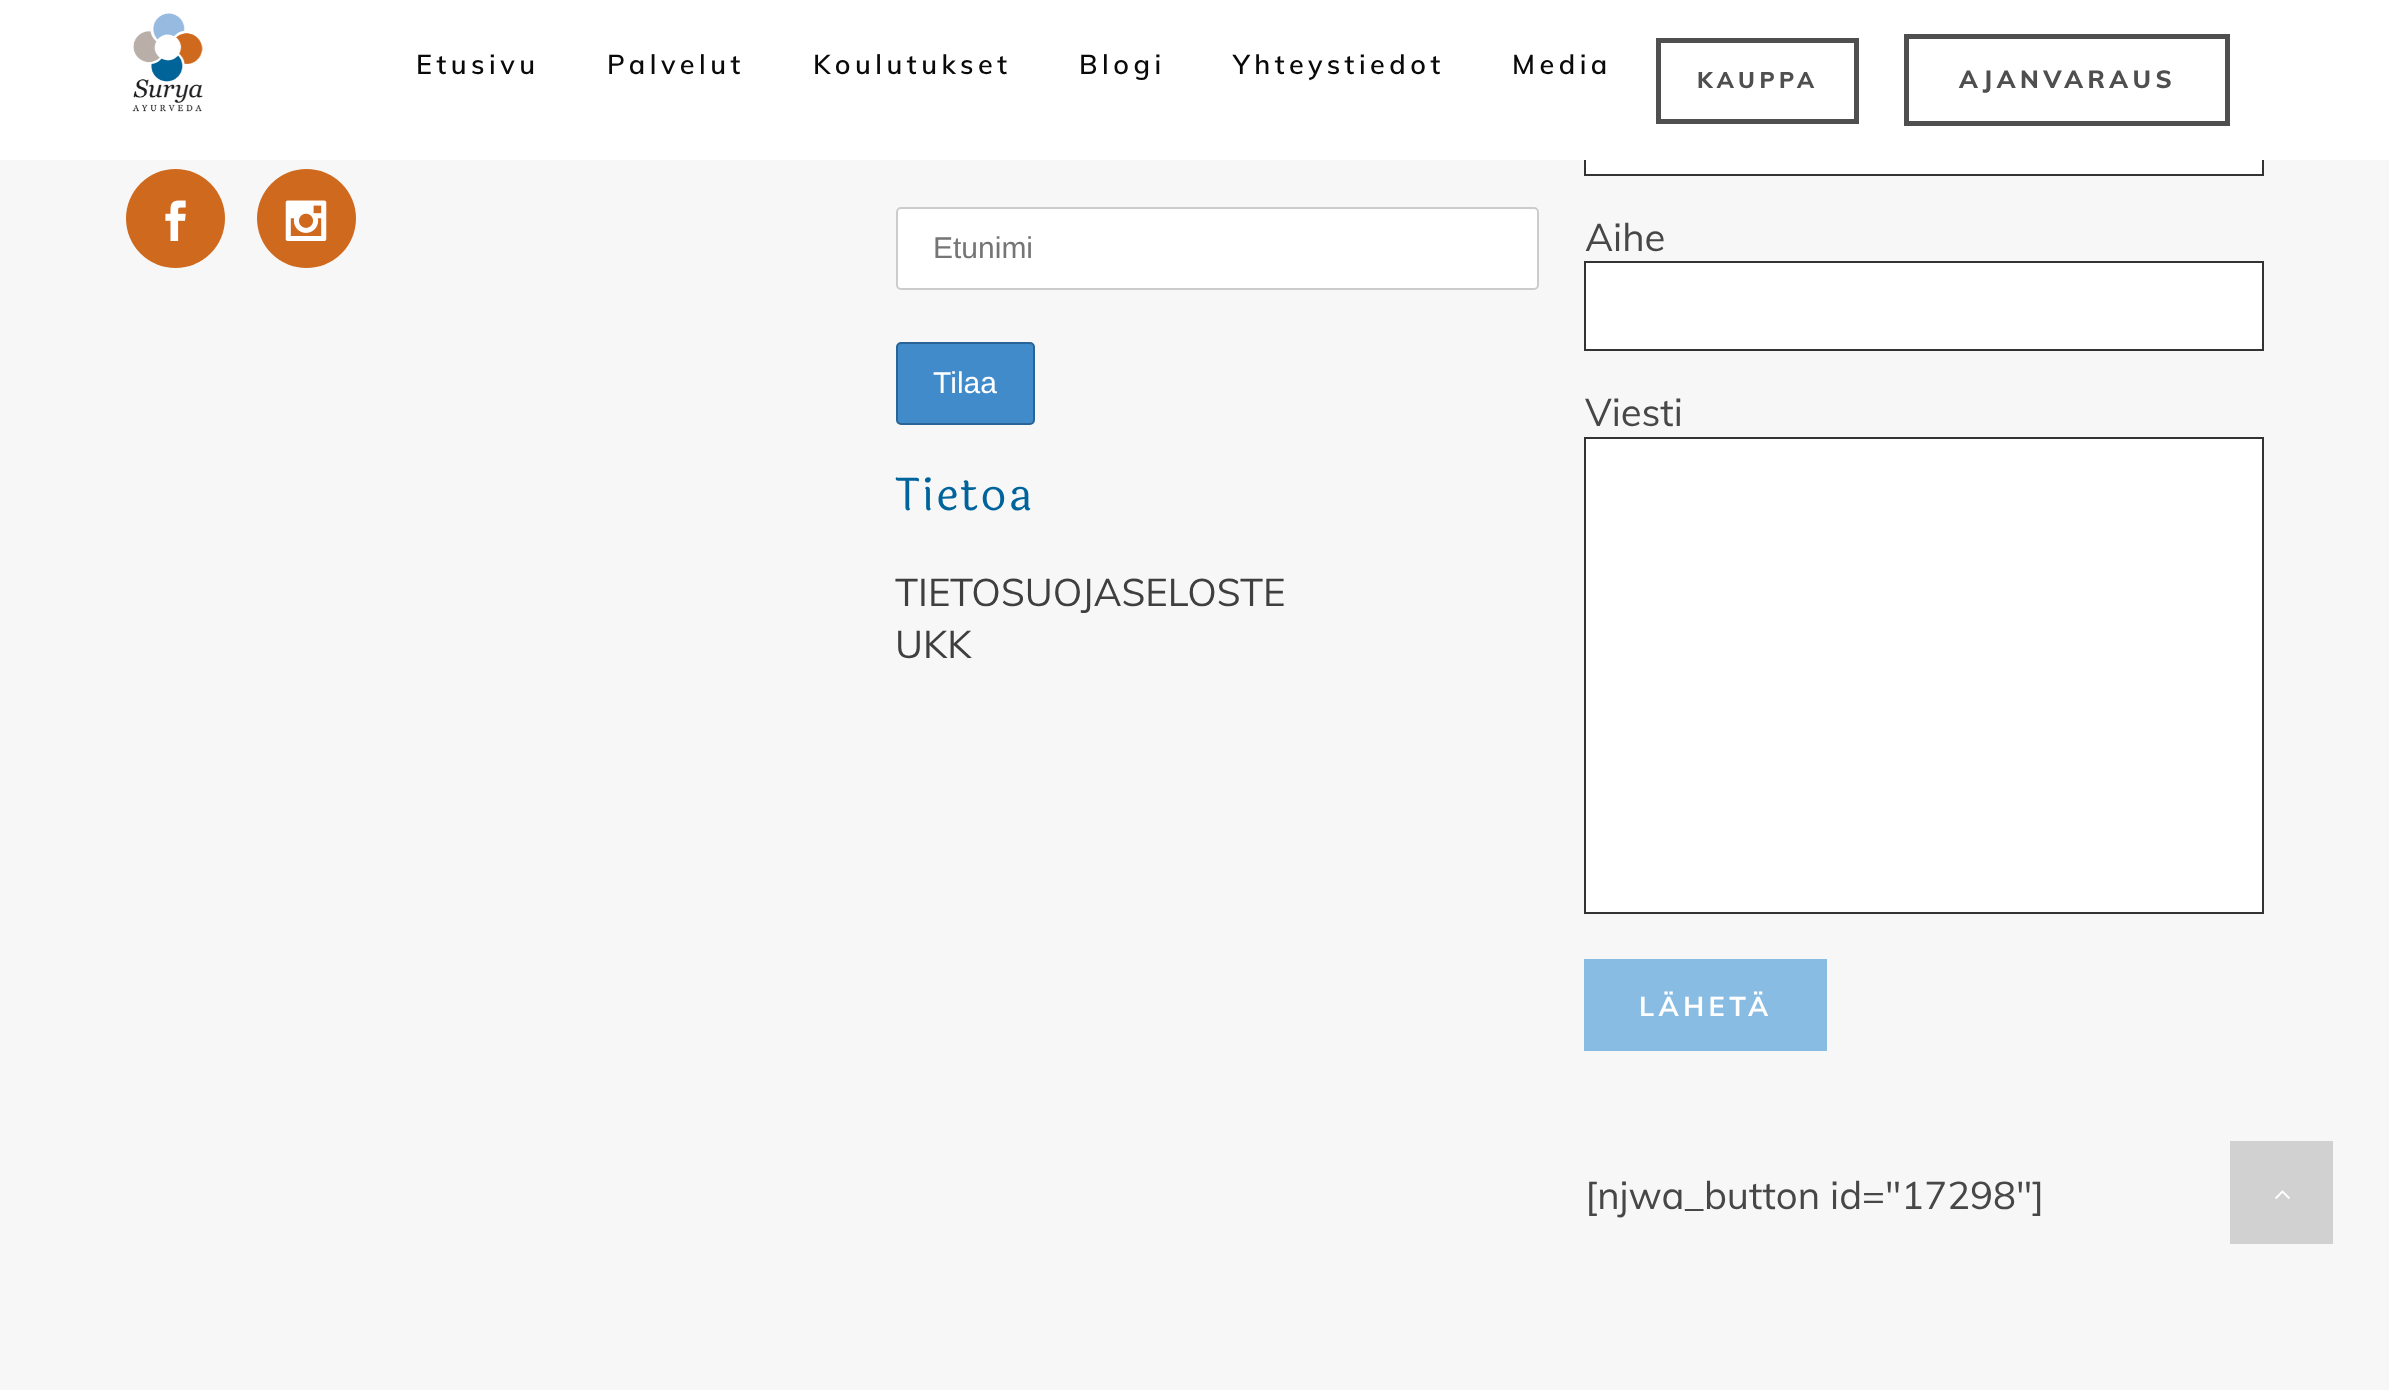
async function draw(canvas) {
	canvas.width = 2389;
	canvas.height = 1390;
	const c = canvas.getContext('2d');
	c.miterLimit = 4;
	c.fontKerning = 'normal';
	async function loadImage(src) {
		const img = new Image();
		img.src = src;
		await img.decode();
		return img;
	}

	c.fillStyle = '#f7f7f7';
	c.fillRect(0, 0, 2389, 1390);
	c.fillStyle = '#fff';
	c.fillRect(1586, 160, 676, 14);
	c.strokeStyle = '#333';
	c.lineWidth = 2;
	c.strokeRect(1585, 87, 678, 88);
	c.fillRect(0, 0, 2389, 160);
	c.drawImage(await loadImage('img1.png'), 132, 13, 71, 99);
	c.letterSpacing = '4.5px';
	c.font = '600 27px Muli';
	c.fillStyle = '#0a0a0a';
	for (const [text, x, y] of [
		['Etusivu', 416, 74],
		['Palvelut', 607, 74],
		['Koulutukset', 813, 74],
		['Blogi', 1079, 74],
		['Yhteystiedot', 1233, 74],
		['Media', 1512, 74],
	]) {
		c.fillText(text, x, y);
	}
	c.strokeStyle = '#4f4f4f';
	c.lineWidth = 5;
	c.strokeRect(1658.5, 40.5, 198, 81);
	c.font = '800 22.5px Muli';
	c.fillStyle = '#4f4f4f';
	c.fillText('KAUPPA', 1697, 88);
	c.strokeRect(1906.5, 36.5, 321, 87);
	c.font = '800 24.75px Muli';
	c.fillText('AJANVARAUS', 1959, 88);
	c.fillStyle = '#d1d1d1';
	c.fillRect(2230, 1141, 103, 103);
	c.drawImage(await loadImage('img2.png'), 2275, 1190, 15, 9);
	c.fillStyle = '#cf691e';
	c.beginPath();
	c.arc(175.5, 218.5, 49.5, 0, 2 * Math.PI);
	c.fill();
	c.drawImage(await loadImage('img3.png'), 165, 200, 21, 41);
	c.beginPath();
	c.arc(306.5, 218.5, 49.5, 0, 2 * Math.PI);
	c.fill();
	c.drawImage(await loadImage('img4.png'), 285, 200, 42, 41);
	c.fillStyle = '#fff';
	c.beginPath();
	c.roundRect(897, 208, 641, 81, 4);
	c.fill();
	c.strokeStyle = '#ccc';
	c.lineWidth = 2;
	c.stroke();
	c.letterSpacing = '0px';
	c.font = '30px Liberation Sans';
	c.fillStyle = '#757575';
	c.fillText('Etunimi', 933, 258);
	c.fillStyle = '#428bca';
	c.beginPath();
	c.roundRect(897, 343, 137, 81, 4);
	c.fill();
	c.strokeStyle = '#2a6496';
	c.stroke();
	c.fillStyle = '#fff';
	c.fillText('Tilaa', 933, 393);
	c.letterSpacing = '2.25px';
	c.font = '45px Laila';
	c.fillStyle = '#00649c';
	c.fillText('Tietoa', 895, 510);
	c.letterSpacing = '0px';
	c.font = '38.25px Muli';
	c.fillStyle = '#3f3f3f';
	c.fillText('TIETOSUOJASELOSTE', 895, 606);
	c.fillText('UKK', 895, 658);
	c.fillStyle = '#474747';
	c.fillText('Aihe', 1585, 251);
	c.fillStyle = '#fff';
	c.beginPath();
	c.rect(1585, 262, 678, 88);
	c.fill();
	c.strokeStyle = '#333';
	c.stroke();
	c.fillStyle = '#474747';
	c.fillText('Viesti', 1585, 426);
	c.fillStyle = '#fff';
	c.beginPath();
	c.rect(1585, 438, 678, 475);
	c.fill();
	c.stroke();
	c.fillStyle = '#88bce2';
	c.fillRect(1584, 959, 243, 92);
	c.letterSpacing = '4.5px';
	c.font = 'bold 27px Muli';
	c.fillStyle = '#fff';
	c.fillText('LÄHETÄ', 1639, 1016);
	c.letterSpacing = '0px';
	c.font = '38.25px Muli';
	c.fillStyle = '#474747';
	c.fillText('[njwa_button id="17298"]', 1585, 1209);
}

draw(document.querySelector('canvas'));
